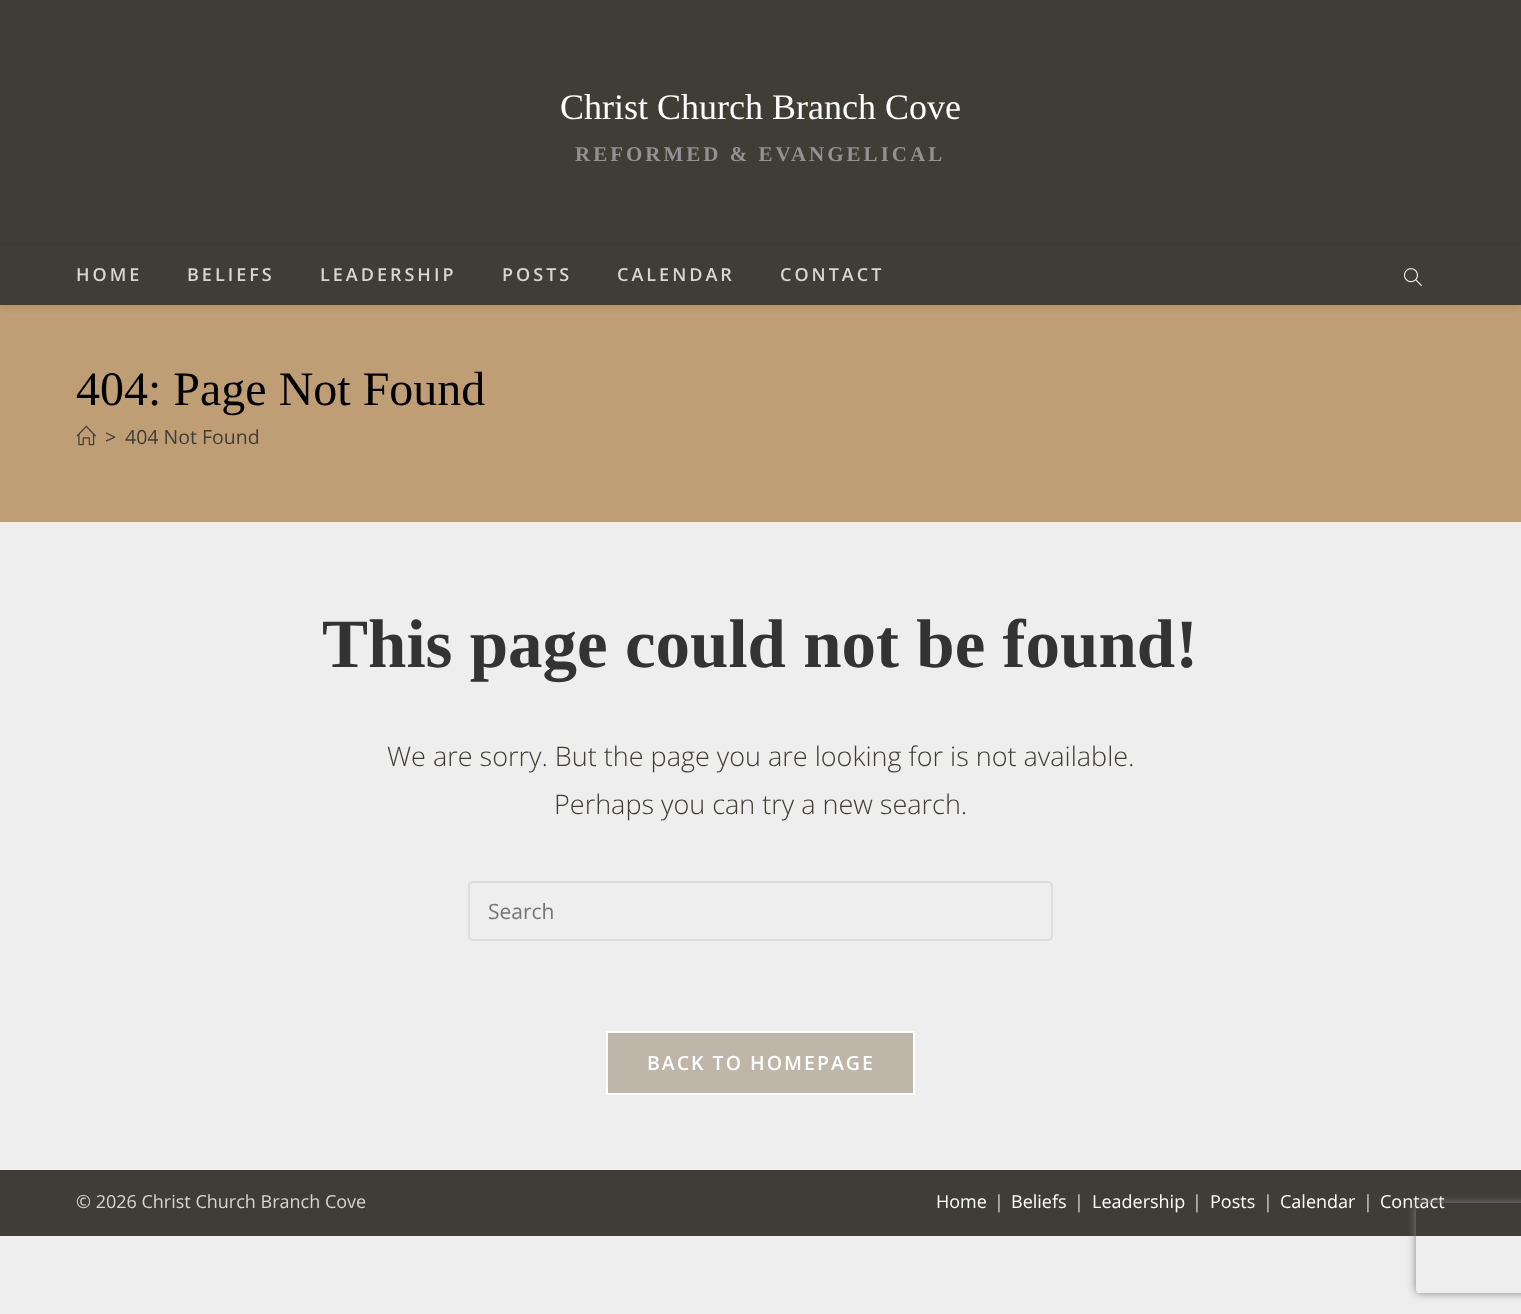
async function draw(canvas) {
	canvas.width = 1521;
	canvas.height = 1314;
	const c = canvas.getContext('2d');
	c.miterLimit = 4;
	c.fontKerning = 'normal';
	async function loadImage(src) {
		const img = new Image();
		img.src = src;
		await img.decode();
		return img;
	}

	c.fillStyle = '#eee';
	c.fillRect(0, 0, 1521, 1314);
	c.fillStyle = '#403c36';
	c.fillRect(0, 0, 1521, 245);
	c.font = '36px Liberation Serif';
	c.fillStyle = '#fff';
	c.fillText('Christ Church Branch Cove', 560, 119);
	c.letterSpacing = '3px';
	c.font = 'bold 21px Liberation Serif';
	c.fillStyle = '#929292';
	c.fillText('REFORMED & EVANGELICAL', 575, 161);
	c.fillStyle = '#bf9e75';
	c.fillRect(0, 305, 1521, 217);
	c.fillStyle = '#0000001a';
	c.filter = 'blur(4px)';
	c.beginPath();
	c.rect(0, 246, 1521, 60);
	c.fill();
	c.filter = 'none';
	c.fillStyle = '#403c36';
	c.fillRect(0, 245, 1521, 60);
	c.font = '600 18px Open Sans';
	c.fillStyle = '#d9d5d2';
	for (const [text, x, y] of [
		['HOME', 76, 281],
		['BELIEFS', 187, 281],
		['LEADERSHIP', 320, 281],
		['POSTS', 502, 281],
		['CALENDAR', 617, 281],
		['CONTACT', 780, 281],
	]) {
		c.fillText(text, x, y);
	}
	c.drawImage(await loadImage('img1.png'), 1404, 268, 18, 19);
	c.letterSpacing = '0px';
	c.font = '48px Liberation Serif';
	c.fillStyle = '#000';
	c.fillText('404: Page Not Found', 76, 405);
	c.drawImage(await loadImage('img2.png'), 77, 425, 19, 21);
	c.font = '19.5px Open Sans';
	c.fillStyle = '#403c36';
	c.fillText('>', 105, 444);
	c.fillText('404 Not Found', 125, 444);
	c.font = 'bold 69px Liberation Serif';
	c.fillStyle = '#333';
	c.fillText('This page could not be found!', 322, 667);
	c.font = '300 27px Open Sans';
	c.fillStyle = '#403c36';
	c.fillText('We are sorry. But the page you are looking for is not available.', 387, 766);
	c.fillText('Perhaps you can try a new search.', 554, 814);
	c.beginPath();
	c.roundRect(469, 882, 583, 58, 4);
	c.strokeStyle = '#ddd';
	c.lineWidth = 2;
	c.stroke();
	c.font = '21px Open Sans';
	c.fillStyle = '#757575';
	c.fillText('Search', 488, 919);
	c.fillStyle = '#bfb5a8';
	c.beginPath();
	c.rect(607, 1032, 307, 62);
	c.fill();
	c.strokeStyle = '#fff';
	c.stroke();
	c.letterSpacing = '2px';
	c.font = '600 19.5px Open Sans';
	c.fillStyle = '#fff';
	c.fillText('BACK TO HOMEPAGE', 647, 1070);
	c.fillStyle = '#403c36';
	c.fillRect(0, 1170, 1521, 66);
	c.letterSpacing = '0px';
	c.font = '18px Open Sans';
	c.fillStyle = '#d9d5d2';
	c.fillText('© 2026 Christ Church Branch Cove', 76, 1208);
	c.fillStyle = '#fff';
	c.fillText('Home', 936, 1208);
	c.fillStyle = '#d9d5d2';
	c.fillText('|', 994, 1208);
	c.fillStyle = '#fff';
	c.fillText('Beliefs', 1011, 1208);
	c.fillStyle = '#d9d5d2';
	c.fillText('|', 1074, 1208);
	c.fillStyle = '#fff';
	c.fillText('Leadership', 1092, 1208);
	c.fillStyle = '#d9d5d2';
	c.fillText('|', 1192, 1208);
	c.fillStyle = '#fff';
	c.fillText('Posts', 1210, 1208);
	c.fillStyle = '#d9d5d2';
	c.fillText('|', 1263, 1208);
	c.fillStyle = '#fff';
	c.fillText('Calendar', 1280, 1208);
	c.fillStyle = '#d9d5d2';
	c.fillText('|', 1363, 1208);
	c.fillStyle = '#fff';
	c.fillText('Contact', 1380, 1208);
	c.save();
	c.beginPath();
	c.moveTo(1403, 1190);
	c.lineTo(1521, 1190);
	c.lineTo(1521, 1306);
	c.lineTo(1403, 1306);
	c.closePath();
	c.moveTo(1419, 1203);
	c.lineTo(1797, 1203);
	c.bezierCurveTo(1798.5, 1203, 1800, 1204.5, 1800, 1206);
	c.lineTo(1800, 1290);
	c.bezierCurveTo(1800, 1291.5, 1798.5, 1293, 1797, 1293);
	c.lineTo(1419, 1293);
	c.bezierCurveTo(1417.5, 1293, 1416, 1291.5, 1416, 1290);
	c.lineTo(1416, 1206);
	c.bezierCurveTo(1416, 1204.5, 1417.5, 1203, 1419, 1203);
	c.closePath();
	c.clip('evenodd');
	c.fillStyle = '#808080';
	c.filter = 'blur(4px)';
	c.beginPath();
	c.roundRect(1416, 1203, 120, 90, 3);
	c.fill();
	c.filter = 'none';
	c.restore();
}

draw(document.querySelector('canvas'));
